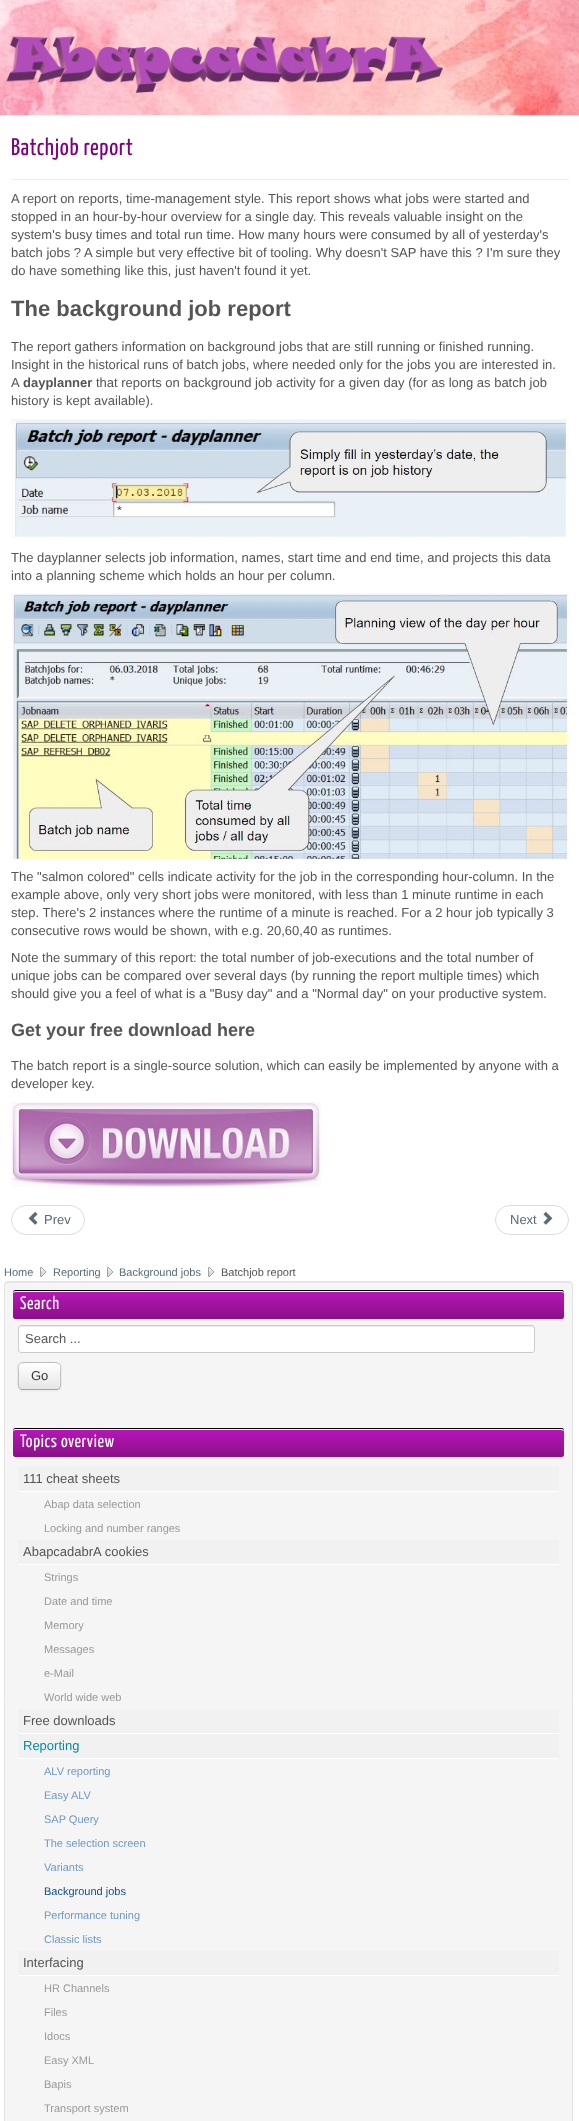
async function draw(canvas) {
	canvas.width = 579;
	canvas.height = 2121;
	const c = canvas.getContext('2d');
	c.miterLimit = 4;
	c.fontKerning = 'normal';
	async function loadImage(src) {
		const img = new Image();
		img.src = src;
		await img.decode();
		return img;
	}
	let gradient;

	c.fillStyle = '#fff';
	c.fillRect(0, 0, 579, 2121);
	c.drawImage(await loadImage('img1.png'), 0, 0, 579, 115);
	c.drawImage(await loadImage('img2.png'), 6, 36, 437, 57);
	c.fillStyle = '#eee';
	c.fillRect(11, 179, 558, 1);
	c.letterSpacing = '0.6px';
	c.font = '200 24px Yanone Kaffeesatz';
	c.fillStyle = '#800080';
	c.fillText('Batchjob report', 11, 155);
	c.letterSpacing = '0px';
	c.font = '13px Liberation Sans';
	c.fillStyle = '#555';
	for (const [text, x, y] of [
		['A report on reports, time-management style. This report shows what jobs were started and', 11, 203],
		['stopped in an hour-by-hour overview for a single day. This reveals valuable insight on the', 11, 221],
		['system\'s busy times and total run time. How many hours were consumed by all of yesterday\'s', 11, 239],
		['batch jobs ? A simple but very effective bit of tooling. Why doesn\'t SAP have this ? I\'m sure they', 11, 257],
		['do have something like this, just haven\'t found it yet.', 11, 275],
	]) {
		c.fillText(text, x, y);
	}
	c.font = 'bold 22px Liberation Sans';
	c.fillText('The background job report', 11, 316);
	c.font = '13px Liberation Sans';
	for (const [text, x, y] of [
		['The report gathers information on background jobs that are still running or finished running.', 11, 351],
		['Insight in the historical runs of batch jobs, where needed only for the jobs you are interested in.', 11, 369],
		['A', 11, 387],
	]) {
		c.fillText(text, x, y);
	}
	c.font = 'bold 13px Liberation Sans';
	c.fillText('dayplanner', 23, 387);
	c.font = '13px Liberation Sans';
	c.fillText('that reports on background job activity for a given day (for as long as batch job', 96, 387);
	c.fillText('history is kept available).', 11, 405);
	c.drawImage(await loadImage('img3.png'), 11, 419, 558, 119);
	c.fillText('The dayplanner selects job information, names, start time and end time, and projects this data', 11, 562);
	c.fillText('into a planning scheme which holds an hour per column.', 11, 580);
	c.drawImage(await loadImage('img4.png'), 11, 594, 558, 265);
	for (const [text, x, y] of [
		['The "salmon colored" cells indicate activity for the job in the corresponding hour-column. In the', 11, 881],
		['example above, only very short jobs were monitored, with less than 1 minute runtime in each', 11, 899],
		['step. There\'s 2 instances where the runtime of a minute is reached. For a 2 hour job typically 3', 11, 917],
		['consecutive rows would be shown, with e.g. 20,60,40 as runtimes.', 11, 935],
		['Note the summary of this report: the total number of job-executions and the total number of', 11, 962],
		['unique jobs can be compared over several days (by running the report multiple times) which', 11, 980],
		['should give you a feel of what is a "Busy day" and a "Normal day" on your productive system.', 11, 998],
	]) {
		c.fillText(text, x, y);
	}
	c.font = 'bold 18px Liberation Sans';
	c.fillText('Get your free download here', 11, 1036);
	c.font = '13px Liberation Sans';
	c.fillText('The batch report is a single-source solution, which can easily be implemented by anyone with a', 11, 1070);
	c.fillText('developer key.', 11, 1088);
	c.drawImage(await loadImage('img5.png'), 11, 1102, 310, 85);
	c.beginPath();
	c.roundRect(11.5, 1205.5, 73, 29, 14.5);
	c.strokeStyle = '#ddd';
	c.stroke();
	c.drawImage(await loadImage('img6.png'), 28, 1211, 10, 14);
	c.fillStyle = '#586b79';
	c.fillText('Prev', 44, 1224);
	c.beginPath();
	c.roundRect(495.5, 1205.5, 73, 29, 14.5);
	c.stroke();
	c.fillText('Next', 510, 1224);
	c.drawImage(await loadImage('img7.png'), 543, 1211, 10, 14);
	c.font = '11px Liberation Sans';
	c.fillText('Home', 4, 1276);
	c.drawImage(await loadImage('img8.png'), 40, 1267, 6, 10);
	c.fillText('Reporting', 53, 1276);
	c.drawImage(await loadImage('img8.png'), 107, 1267, 6, 10);
	c.fillText('Background jobs', 119, 1276);
	c.drawImage(await loadImage('img8.png'), 208, 1267, 6, 10);
	c.fillStyle = '#555';
	c.fillText('Batchjob report', 221, 1276);
	c.fillStyle = '#f5f5f5';
	c.beginPath();
	c.roundRect(4, 1281, 569, 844, 4);
	c.fill();
	c.fillStyle = '#e9e9e9';
	c.beginPath();
	c.moveTo(8, 1283);
	c.lineTo(569, 1283);
	c.bezierCurveTo(571, 1283, 572, 1284, 572, 1286);
	c.lineTo(572, 1285);
	c.bezierCurveTo(572, 1283, 571, 1282, 569, 1282);
	c.lineTo(8, 1282);
	c.bezierCurveTo(6, 1282, 5, 1283, 5, 1285);
	c.lineTo(5, 1286);
	c.bezierCurveTo(5, 1284, 6, 1283, 8, 1283);
	c.closePath();
	c.fill();
	c.beginPath();
	c.roundRect(4.5, 1281.5, 568, 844, 3.5);
	c.strokeStyle = '#e3e3e3';
	c.stroke();
	c.fillStyle = '#800080';
	c.beginPath();
	c.roundRect(13, 1290, 551, 29, 3);
	c.fill();
	c.save();
	c.beginPath();
	c.roundRect(13, 1290, 551, 29, 3);
	c.clip();
	gradient = c.createLinearGradient(289, 1263, 289, 1291);
	gradient.addColorStop(0, '#b716b7');
	gradient.addColorStop(1, '#8a108a');
	c.fillStyle = gradient;
	c.fillRect(13, 1290, 551, 1);
	gradient = c.createLinearGradient(289, 1291, 289, 1319);
	gradient.addColorStop(0, '#b716b7');
	gradient.addColorStop(1, '#8a108a');
	c.fillStyle = gradient;
	c.beginPath();
	c.roundRect(13, 1291, 551, 28, [0, 0, 3, 3]);
	c.fill();
	c.restore();
	c.fillStyle = '#fff';
	c.beginPath();
	c.moveTo(16, 1292);
	c.lineTo(561, 1292);
	c.bezierCurveTo(563, 1292, 564, 1293, 564, 1294);
	c.bezierCurveTo(564, 1292, 563, 1291, 561, 1291);
	c.lineTo(16, 1291);
	c.bezierCurveTo(14, 1291, 13, 1292, 13, 1294);
	c.bezierCurveTo(13, 1293, 14, 1292, 16, 1292);
	c.closePath();
	c.fill();
	c.fillStyle = '#000';
	c.fillRect(15, 1290, 548, 1);
	c.letterSpacing = '0.6px';
	c.font = '200 18px Yanone Kaffeesatz';
	c.fillStyle = '#fff';
	c.fillText('Search', 20, 1309);
	c.beginPath();
	c.roundRect(18, 1325, 517, 28, 3);
	c.fill();
	c.fillStyle = '#ececec';
	c.beginPath();
	c.moveTo(21, 1327);
	c.lineTo(532, 1327);
	c.bezierCurveTo(533, 1327, 534, 1328, 534, 1329);
	c.bezierCurveTo(534, 1328, 534, 1326, 532, 1326);
	c.lineTo(21, 1326);
	c.lineTo(19, 1327);
	c.lineTo(19, 1329);
	c.bezierCurveTo(19, 1328, 20, 1327, 21, 1327);
	c.closePath();
	c.fill();
	c.beginPath();
	c.roundRect(18.5, 1325.5, 516, 27, 2.5);
	c.strokeStyle = '#ccc';
	c.stroke();
	c.letterSpacing = '0px';
	c.font = '13px Liberation Sans';
	c.fillStyle = '#555';
	c.fillText('Search ...', 25, 1343);
	c.fillStyle = '#0000000d';
	c.filter = 'blur(1px)';
	c.beginPath();
	c.roundRect(18, 1363, 43, 28, 4);
	c.fill();
	c.filter = 'none';
	c.fillStyle = '#f5f5f5';
	c.beginPath();
	c.roundRect(18, 1362, 43, 28, 4);
	c.fill();
	c.save();
	c.beginPath();
	c.roundRect(18, 1362, 43, 28, 4);
	c.clip();
	gradient = c.createLinearGradient(40, 1363, 40, 1389);
	gradient.addColorStop(0, '#fff');
	gradient.addColorStop(1, '#e6e6e6');
	c.fillStyle = gradient;
	c.fillRect(18, 1363, 43, 26);
	c.restore();
	c.beginPath();
	c.moveTo(59.5, 1388.5);
	c.bezierCurveTo(59, 1389, 58, 1389.5, 57, 1389.5);
	c.lineTo(22, 1389.5);
	c.bezierCurveTo(21, 1389.5, 20, 1389, 19.5, 1388.5);
	c.strokeStyle = '#a2a2a2';
	c.stroke();
	c.beginPath();
	c.moveTo(19.5, 1388.5);
	c.bezierCurveTo(17.5, 1386, 18.5, 1378.5, 18.5, 1376);
	c.bezierCurveTo(18.5, 1364, 16, 1362.5, 28, 1362.5);
	c.lineTo(51, 1362.5);
	c.bezierCurveTo(63, 1362.5, 60.5, 1364, 60.5, 1376);
	c.bezierCurveTo(60.5, 1378.5, 61.5, 1386, 59.5, 1388.5);
	c.strokeStyle = '#bbb';
	c.stroke();
	c.fillStyle = '#333';
	c.fillText('Go', 31, 1380);
	c.fillStyle = '#800080';
	c.beginPath();
	c.roundRect(13, 1428, 551, 29, 3);
	c.fill();
	c.save();
	c.beginPath();
	c.roundRect(13, 1428, 551, 29, 3);
	c.clip();
	gradient = c.createLinearGradient(289, 1401, 289, 1429);
	gradient.addColorStop(0, '#b716b7');
	gradient.addColorStop(1, '#8a108a');
	c.fillStyle = gradient;
	c.fillRect(13, 1428, 551, 1);
	gradient = c.createLinearGradient(289, 1429, 289, 1457);
	gradient.addColorStop(0, '#b716b7');
	gradient.addColorStop(1, '#8a108a');
	c.fillStyle = gradient;
	c.beginPath();
	c.roundRect(13, 1429, 551, 28, [0, 0, 3, 3]);
	c.fill();
	c.restore();
	c.fillStyle = '#fff';
	c.beginPath();
	c.moveTo(16, 1430);
	c.lineTo(561, 1430);
	c.bezierCurveTo(563, 1430, 564, 1431, 564, 1432);
	c.bezierCurveTo(564, 1430, 563, 1429, 561, 1429);
	c.lineTo(16, 1429);
	c.bezierCurveTo(14, 1429, 13, 1430, 13, 1432);
	c.bezierCurveTo(13, 1431, 14, 1430, 16, 1430);
	c.closePath();
	c.fill();
	c.fillStyle = '#000';
	c.fillRect(15, 1428, 548, 1);
	c.letterSpacing = '0.6px';
	c.font = '200 18px Yanone Kaffeesatz';
	c.fillStyle = '#fff';
	c.fillText('Topics overview', 20, 1447);
	c.fillStyle = '#f1f1f1';
	c.fillRect(18, 1467, 541, 24);
	c.fillStyle = '#fff';
	c.fillRect(18, 1491, 541, 1);
	c.letterSpacing = '0px';
	c.font = '13px Liberation Sans';
	c.fillStyle = '#555';
	c.fillText('111 cheat sheets', 23, 1483);
	c.font = '11px Liberation Sans';
	c.fillStyle = '#999';
	c.fillText('Abap data selection', 44, 1508);
	c.fillText('Locking and number ranges', 44, 1532);
	c.fillStyle = '#f1f1f1';
	c.fillRect(18, 1540, 541, 24);
	c.fillStyle = '#fff';
	c.fillRect(18, 1564, 541, 1);
	c.font = '13px Liberation Sans';
	c.fillStyle = '#555';
	c.fillText('AbapcadabrA cookies', 23, 1556);
	c.font = '11px Liberation Sans';
	c.fillStyle = '#999';
	for (const [text, x, y] of [
		['Strings', 44, 1581],
		['Date and time', 44, 1605],
		['Memory', 44, 1629],
		['Messages', 44, 1653],
		['e-Mail', 44, 1677],
		['World wide web', 44, 1701],
	]) {
		c.fillText(text, x, y);
	}
	c.fillStyle = '#f1f1f1';
	c.fillRect(18, 1709, 541, 24);
	c.fillStyle = '#fff';
	c.fillRect(18, 1733, 541, 1);
	c.font = '13px Liberation Sans';
	c.fillStyle = '#555';
	c.fillText('Free downloads', 23, 1725);
	c.fillStyle = '#f1f1f1';
	c.fillRect(18, 1734, 541, 24);
	c.fillStyle = '#fff';
	c.fillRect(18, 1758, 541, 1);
	c.fillStyle = '#058ca1';
	c.fillText('Reporting', 23, 1750);
	c.font = '11px Liberation Sans';
	c.fillStyle = '#6e99c2';
	for (const [text, x, y] of [
		['ALV reporting', 44, 1775],
		['Easy ALV', 44, 1799],
		['SAP Query', 44, 1823],
		['The selection screen', 44, 1847],
		['Variants', 44, 1871],
	]) {
		c.fillText(text, x, y);
	}
	c.fillStyle = '#134e8b';
	c.fillText('Background jobs', 44, 1895);
	c.fillStyle = '#6e99c2';
	c.fillText('Performance tuning', 44, 1919);
	c.fillText('Classic lists', 44, 1943);
	c.fillStyle = '#f1f1f1';
	c.fillRect(18, 1951, 541, 24);
	c.fillStyle = '#fff';
	c.fillRect(18, 1975, 541, 1);
	c.font = '13px Liberation Sans';
	c.fillStyle = '#555';
	c.fillText('Interfacing', 23, 1967);
	c.font = '11px Liberation Sans';
	c.fillStyle = '#999';
	for (const [text, x, y] of [
		['HR Channels', 44, 1992],
		['Files', 44, 2016],
		['Idocs', 44, 2040],
		['Easy XML', 44, 2064],
		['Bapis', 44, 2088],
		['Transport system', 44, 2112],
	]) {
		c.fillText(text, x, y);
	}
}

draw(document.querySelector('canvas'));
